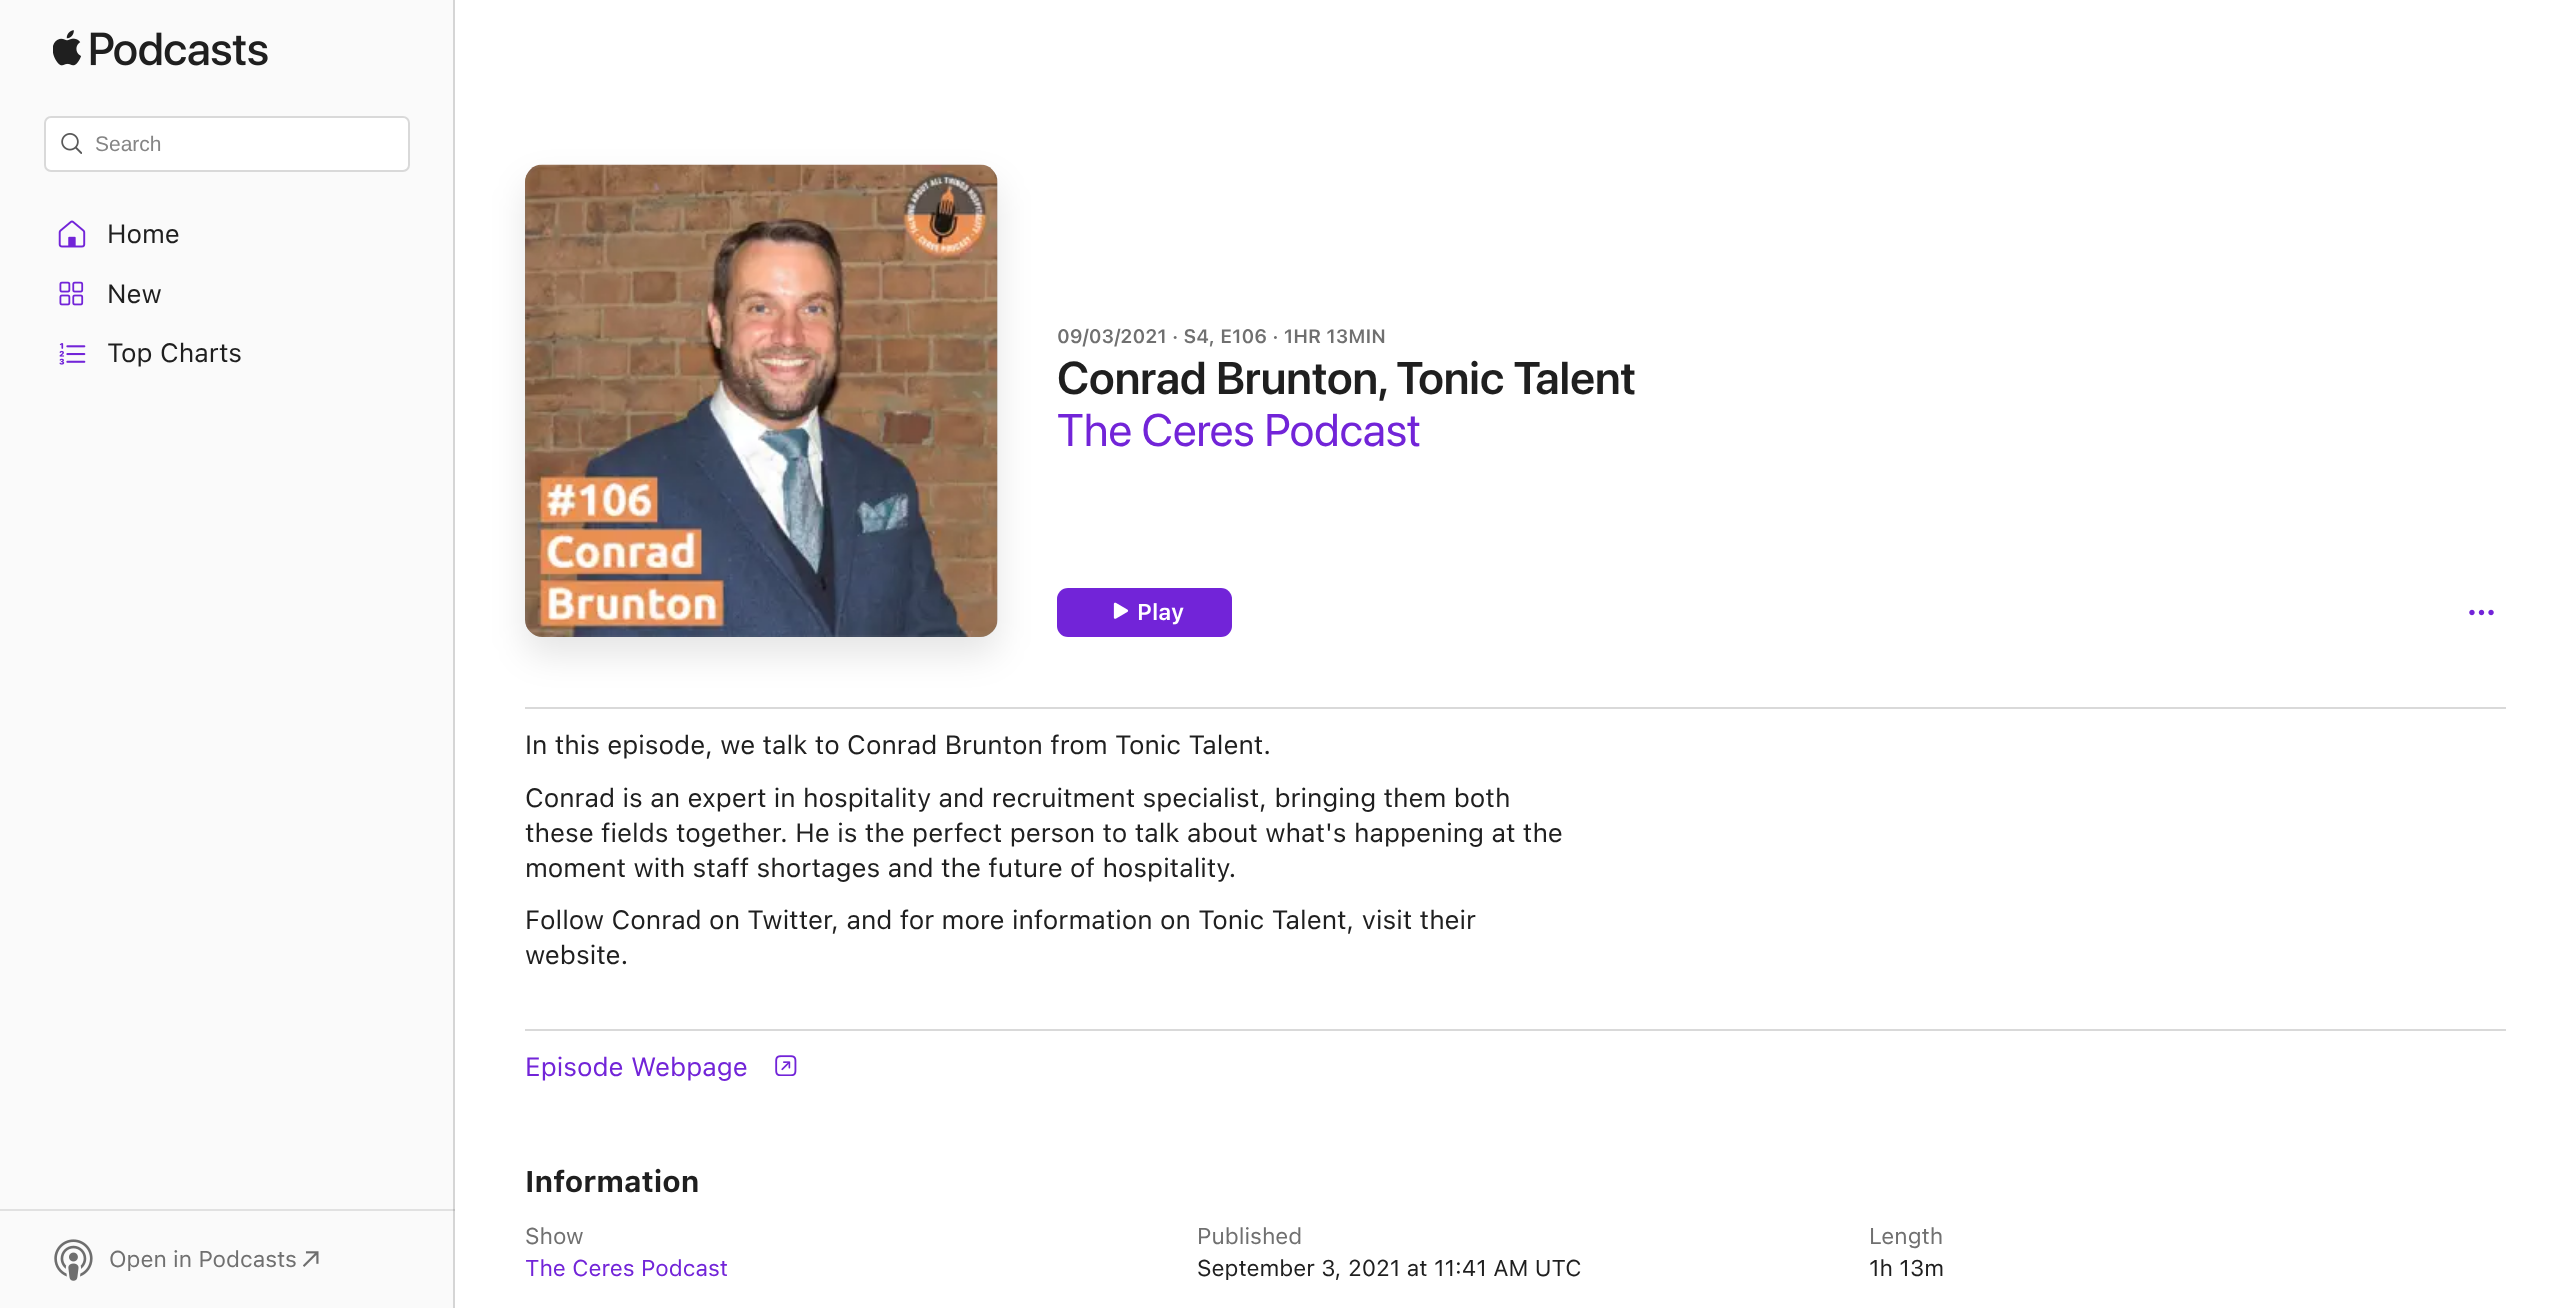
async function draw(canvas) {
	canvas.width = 2576;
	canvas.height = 1308;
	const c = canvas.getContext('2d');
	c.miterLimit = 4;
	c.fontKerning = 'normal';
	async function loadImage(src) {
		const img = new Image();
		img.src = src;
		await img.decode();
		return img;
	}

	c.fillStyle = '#fff';
	c.fillRect(0, 0, 2576, 1308);
	for (const [x, y, w, h, color] of [
		[0, 0, 453, 1308, '#fafafa'],
		[0, 1209, 455, 2, '#e1e1e1'],
		[453, 0, 2, 1308, '#d5d5d5'],
		[453, 1209, 2, 2, '#c0c0c0'],
	]) {
		c.fillStyle = color;
		c.fillRect(x, y, w, h);
	}
	c.drawImage(await loadImage('img1.png'), 53, 30, 215, 36);
	c.fillStyle = '#fff';
	c.beginPath();
	c.roundRect(45, 117, 364, 54, 6);
	c.fill();
	c.strokeStyle = '#d9d9d9';
	c.lineWidth = 2;
	c.stroke();
	c.drawImage(await loadImage('img2.png'), 61, 133, 21, 21);
	c.font = '21px Liberation Sans';
	c.fillStyle = '#858585';
	c.fillText('Search', 95, 151);
	c.drawImage(await loadImage('img3.png'), 58, 220, 28, 28);
	c.font = '26.25px "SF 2"';
	c.fillStyle = '#1f1f1f';
	c.fillText('Home', 107, 243);
	c.drawImage(await loadImage('img4.png'), 59, 281, 25, 25);
	c.fillText('New', 107, 303);
	c.drawImage(await loadImage('img5.png'), 59, 343, 27, 22);
	c.fillText('Top Charts', 107, 362);
	c.drawImage(await loadImage('img6.png'), 54, 1239, 39, 42);
	c.font = '22.75px "SF 2"';
	c.fillStyle = '#707070';
	c.fillText('Open in Podcasts', 109, 1267);
	c.drawImage(await loadImage('img7.png'), 303, 1251, 16, 16);
	c.fillStyle = '#d9d9d9';
	c.fillRect(525, 707, 1981, 2);
	c.fillStyle = '#0000001a';
	c.filter = 'blur(17.5px)';
	c.beginPath();
	c.roundRect(525, 182, 473, 473, 18);
	c.fill();
	c.filter = 'none';
	c.drawImage(await loadImage('img8.png'), 525, 164, 473, 473);
	c.beginPath();
	c.roundRect(526, 166, 471, 470, 17);
	c.strokeStyle = '#8080801a';
	c.stroke();
	c.font = '600 19.25px SF';
	c.fillStyle = '#707070';
	c.fillText('09/03/2021 · S4, E106 · 1HR 13MIN', 1057, 343);
	c.font = '600 45.5px "SF 2"';
	c.fillStyle = '#1f1f1f';
	c.fillText('Conrad Brunton, Tonic Talent', 1057, 394);
	c.font = '45.5px SF';
	c.fillStyle = '#7224d8';
	c.fillText('The Ceres Podcast', 1057, 446);
	c.beginPath();
	c.roundRect(1057, 588, 175, 49, 11);
	c.fill();
	c.drawImage(await loadImage('img9.png'), 1113, 602, 16, 17);
	c.font = '600 22.75px SF';
	c.fillStyle = '#fff';
	c.fillText('Play', 1137, 620);
	c.drawImage(await loadImage('img10.png'), 2469, 609, 25, 7);
	c.font = '26.25px "SF 2"';
	c.fillStyle = '#1f1f1f';
	for (const [text, x, y] of [
		['In this episode, we talk to Conrad Brunton from Tonic Talent.', 525, 754],
		['Conrad is an expert in hospitality and recruitment specialist, bringing them both', 525, 807],
		['these fields together. He is the perfect person to talk about what\'s happening at the', 525, 842],
		['moment with staff shortages and the future of hospitality.', 525, 877],
		['Follow Conrad on Twitter, and for more information on Tonic Talent, visit their', 525, 929],
		['website.', 525, 964],
	]) {
		c.fillText(text, x, y);
	}
	c.fillStyle = '#d9d9d9';
	c.fillRect(525, 1029, 1981, 2);
	c.fillStyle = '#7224d8';
	c.fillText('Episode Webpage', 525, 1076);
	c.drawImage(await loadImage('img11.png'), 775, 1055, 22, 21);
	c.font = 'bold 29.75px SF';
	c.fillStyle = '#1f1f1f';
	c.fillText('Information', 525, 1192);
	c.font = '22.75px "SF 2"';
	c.fillStyle = '#707070';
	c.fillText('Show', 525, 1244);
	c.fillStyle = '#7224d8';
	c.fillText('The Ceres Podcast', 525, 1276);
	c.fillStyle = '#707070';
	c.fillText('Published', 1197, 1244);
	c.fillStyle = '#1f1f1f';
	c.fillText('September 3, 2021 at 11:41 AM UTC', 1197, 1276);
	c.fillStyle = '#707070';
	c.fillText('Length', 1869, 1244);
	c.fillStyle = '#1f1f1f';
	c.fillText('1h 13m', 1869, 1276);
}

draw(document.querySelector('canvas'));
